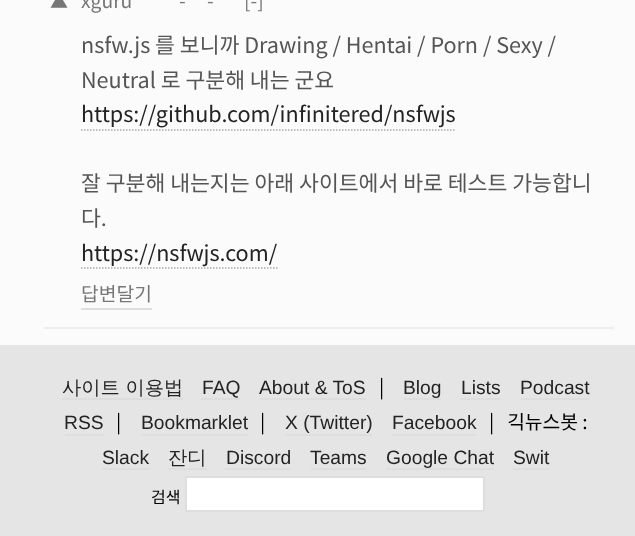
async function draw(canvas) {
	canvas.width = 635;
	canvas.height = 536;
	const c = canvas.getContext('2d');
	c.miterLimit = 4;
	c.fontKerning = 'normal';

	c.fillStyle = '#fbfbfb';
	c.fillRect(0, 0, 635, 536);
	c.fillStyle = '#eee';
	c.fillRect(44, 327, 570, 2);
	c.font = '100 18px Noto Sans KR';
	c.fillStyle = '#777';
	c.fillText('▲', 50, 8);
	c.font = '100 19.25px Noto Sans KR';
	for (const [text, x, y] of [
		['xguru', 81, 8],
		['-', 179, 8],
		['-', 207, 8],
		['[-]', 244, 8],
	]) {
		c.fillText(text, x, y);
	}
	c.font = '100 21.6px Noto Sans KR';
	c.fillStyle = '#555';
	c.fillText('nsfw.js 를 보니까 Drawing / Hentai / Porn / Sexy /', 81, 53);
	c.fillText('Neutral 로 구분해 내는 군요', 81, 88);
	c.fillStyle = '#232323';
	c.fillText('https://github.com/infinitered/nsfwjs', 81, 122);
	c.beginPath();
	c.moveTo(81, 130);
	c.lineTo(456, 130);
	c.strokeStyle = '#aaa';
	c.lineWidth = 1.5;
	c.setLineDash([1.5, 1.5]);
	c.stroke();
	c.fillStyle = '#555';
	c.fillText('잘 구분해 내는지는 아래 사이트에서 바로 테스트 가능합니', 81, 191);
	c.fillText('다.', 81, 226);
	c.fillStyle = '#232323';
	c.fillText('https://nsfwjs.com/', 81, 261);
	c.beginPath();
	c.moveTo(81, 268);
	c.lineTo(277.5, 268);
	c.stroke();
	c.font = '100 19.25px Noto Sans KR';
	c.fillStyle = '#777';
	c.fillText('답변달기', 81, 301);
	c.fillStyle = '#dedede';
	c.fillRect(81, 308, 71, 2);
	c.fillStyle = '#e5e5e5';
	c.fillRect(0, 345, 635, 191);
	c.font = '500 19.25px WenQuanYi Zen Hei';
	c.fillStyle = '#232323';
	c.fillText('사이트 이용법', 62, 394);
	c.fillStyle = '#dedede';
	c.fillRect(62, 398, 121, 2);
	c.font = '19.25px Liberation Sans';
	c.fillStyle = '#232323';
	c.fillText('FAQ', 202, 394);
	c.fillStyle = '#dedede';
	c.fillRect(201, 398, 39, 2);
	c.fillStyle = '#232323';
	c.fillText('About & ToS', 259, 394);
	c.fillStyle = '#dedede';
	c.fillRect(260, 398, 106, 2);
	c.font = '100 19.25px Noto Sans KR';
	c.fillStyle = '#000';
	c.fillText('|', 379, 394);
	c.font = '19.25px Liberation Sans';
	c.fillStyle = '#232323';
	c.fillText('Blog', 403, 394);
	c.fillStyle = '#dedede';
	c.fillRect(404, 398, 37, 2);
	c.fillStyle = '#232323';
	c.fillText('Lists', 461, 394);
	c.fillStyle = '#dedede';
	c.fillRect(461, 398, 40, 2);
	c.fillStyle = '#232323';
	c.fillText('Podcast', 520, 394);
	c.fillStyle = '#dedede';
	c.fillRect(521, 398, 69, 2);
	c.fillStyle = '#232323';
	c.fillText('RSS', 64, 429);
	c.fillStyle = '#dedede';
	c.fillRect(65, 434, 39, 2);
	c.font = '100 19.25px Noto Sans KR';
	c.fillStyle = '#000';
	c.fillText('|', 116, 429);
	c.font = '19.25px Liberation Sans';
	c.fillStyle = '#232323';
	c.fillText('Bookmarklet', 141, 429);
	c.fillStyle = '#dedede';
	c.fillRect(141, 434, 107, 2);
	c.font = '100 19.25px Noto Sans KR';
	c.fillStyle = '#000';
	c.fillText('|', 260, 429);
	c.font = '19.25px Liberation Sans';
	c.fillStyle = '#232323';
	c.fillText('X (Twitter)', 285, 429);
	c.fillStyle = '#dedede';
	c.fillRect(285, 434, 87, 2);
	c.fillStyle = '#232323';
	c.fillText('Facebook', 392, 429);
	c.fillStyle = '#dedede';
	c.fillRect(392, 434, 84, 2);
	c.font = '100 19.25px Noto Sans KR';
	c.fillStyle = '#000';
	c.fillText('|   긱뉴스봇 :', 489, 429);
	c.font = '19.25px Liberation Sans';
	c.fillStyle = '#232323';
	c.fillText('Slack', 102, 464);
	c.fillStyle = '#dedede';
	c.fillRect(102, 468, 47, 2);
	c.font = '500 19.25px WenQuanYi Zen Hei';
	c.fillStyle = '#232323';
	c.fillText('잔디', 168, 464);
	c.fillStyle = '#dedede';
	c.fillRect(168, 468, 39, 2);
	c.font = '19.25px Liberation Sans';
	c.fillStyle = '#232323';
	c.fillText('Discord', 226, 464);
	c.fillStyle = '#dedede';
	c.fillRect(225, 468, 66, 2);
	c.fillStyle = '#232323';
	c.fillText('Teams', 310, 464);
	c.fillStyle = '#dedede';
	c.fillRect(311, 468, 55, 2);
	c.fillStyle = '#232323';
	c.fillText('Google Chat', 386, 464);
	c.fillStyle = '#dedede';
	c.fillRect(386, 468, 108, 2);
	c.fillStyle = '#232323';
	c.fillText('Swit', 513, 464);
	c.fillStyle = '#dedede';
	c.fillRect(513, 468, 36, 2);
	c.font = '100 16px Noto Sans KR';
	c.fillStyle = '#000';
	c.fillText('검색', 151, 503);
	c.fillStyle = '#fff';
	c.beginPath();
	c.roundRect(186, 477, 298, 34, 0.5);
	c.fill();
	c.strokeStyle = '#dedede';
	c.lineWidth = 2;
	c.setLineDash([]);
	c.stroke();
}

draw(document.querySelector('canvas'));
